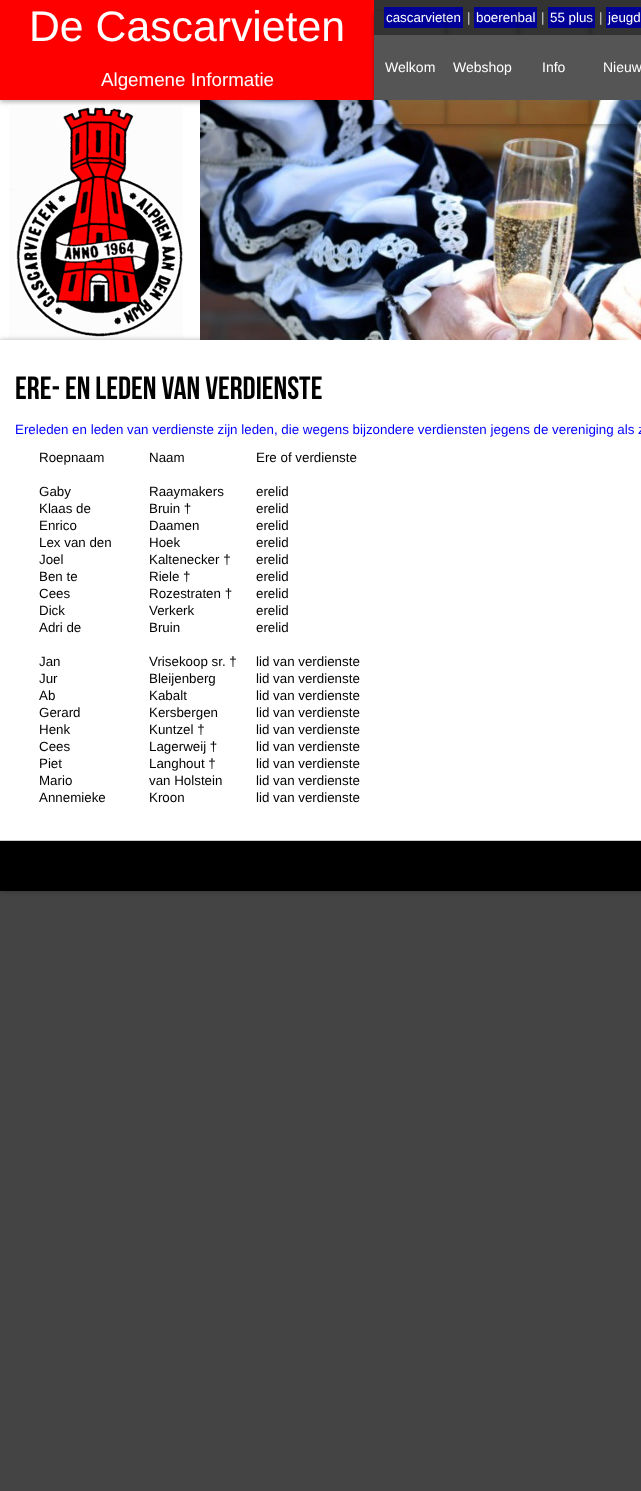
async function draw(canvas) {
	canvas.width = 641;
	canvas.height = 1491;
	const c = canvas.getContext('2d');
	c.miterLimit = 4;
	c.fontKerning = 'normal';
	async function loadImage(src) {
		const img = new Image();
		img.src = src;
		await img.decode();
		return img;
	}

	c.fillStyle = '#444';
	c.fillRect(0, 0, 641, 1491);
	c.fillStyle = '#fff';
	c.fillRect(0, 100, 200, 240);
	c.drawImage(await loadImage('img1.png'), 9, 107, 174, 232);
	c.fillStyle = '#0000004d';
	c.filter = 'blur(2.5px)';
	c.beginPath();
	c.rect(0, 841, 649, 50);
	c.fill();
	c.filter = 'none';
	c.fillStyle = '#000';
	c.fillRect(0, 841, 641, 50);
	c.fillStyle = '#0000004d';
	c.filter = 'blur(2.5px)';
	c.beginPath();
	c.rect(0, 340, 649, 501);
	c.fill();
	c.filter = 'none';
	c.drawImage(await loadImage('img2.png'), 200, 100, 441, 240);
	c.filter = 'blur(2.5px)';
	c.beginPath();
	c.rect(0, 2, 374, 100);
	c.fill();
	c.filter = 'none';
	c.fillStyle = '#f00';
	c.fillRect(0, 0, 374, 100);
	c.font = '42.75px Liberation Sans';
	c.fillStyle = '#fff';
	c.fillText('De Cascarvieten', 29, 41);
	c.font = '18.75px Liberation Sans';
	c.fillText('Algemene Informatie', 101, 86);
	c.fillStyle = '#333';
	c.fillRect(374, 0, 267, 35);
	c.fillStyle = '#009';
	c.fillRect(384, 7, 79, 21);
	c.font = '13.35px Liberation Sans';
	c.fillStyle = '#fff';
	c.fillText('cascarvieten', 386, 22);
	c.fillStyle = '#ccc';
	c.fillText('|', 467, 22);
	c.fillStyle = '#009';
	c.fillRect(474, 7, 63, 21);
	c.fillStyle = '#fff';
	c.fillText('boerenbal', 476, 22);
	c.fillStyle = '#ccc';
	c.fillText('|', 541, 22);
	c.fillStyle = '#009';
	c.fillRect(548, 7, 47, 21);
	c.fillStyle = '#fff';
	c.fillText('55 plus', 550, 22);
	c.fillStyle = '#ccc';
	c.fillText('|', 599, 22);
	c.fillStyle = '#009';
	c.fillRect(606, 7, 35, 21);
	c.fillStyle = '#fff';
	c.fillText('jeugd', 608, 22);
	c.save();
	c.beginPath();
	c.moveTo(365, 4);
	c.lineTo(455, 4);
	c.lineTo(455, 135);
	c.lineTo(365, 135);
	c.closePath();
	c.moveTo(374, 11);
	c.lineTo(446, 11);
	c.lineTo(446, 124);
	c.lineTo(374, 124);
	c.closePath();
	c.clip('evenodd');
	c.fillStyle = '#0000004d';
	c.filter = 'blur(2.5px)';
	c.beginPath();
	c.rect(374, 13, 72, 113);
	c.fill();
	c.filter = 'none';
	c.restore();
	c.save();
	c.beginPath();
	c.moveTo(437, 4);
	c.lineTo(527, 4);
	c.lineTo(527, 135);
	c.lineTo(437, 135);
	c.closePath();
	c.moveTo(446, 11);
	c.lineTo(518, 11);
	c.lineTo(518, 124);
	c.lineTo(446, 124);
	c.closePath();
	c.clip('evenodd');
	c.fillStyle = '#0000004d';
	c.filter = 'blur(2.5px)';
	c.beginPath();
	c.rect(446, 13, 72, 113);
	c.fill();
	c.filter = 'none';
	c.restore();
	c.save();
	c.beginPath();
	c.moveTo(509, 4);
	c.lineTo(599, 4);
	c.lineTo(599, 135);
	c.lineTo(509, 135);
	c.closePath();
	c.moveTo(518, 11);
	c.lineTo(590, 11);
	c.lineTo(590, 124);
	c.lineTo(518, 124);
	c.closePath();
	c.clip('evenodd');
	c.fillStyle = '#0000004d';
	c.filter = 'blur(2.5px)';
	c.beginPath();
	c.rect(518, 13, 72, 113);
	c.fill();
	c.filter = 'none';
	c.restore();
	c.save();
	c.beginPath();
	c.moveTo(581, 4);
	c.lineTo(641, 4);
	c.lineTo(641, 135);
	c.lineTo(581, 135);
	c.closePath();
	c.moveTo(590, 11);
	c.lineTo(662, 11);
	c.lineTo(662, 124);
	c.lineTo(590, 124);
	c.closePath();
	c.clip('evenodd');
	c.fillStyle = '#0000004d';
	c.filter = 'blur(2.5px)';
	c.beginPath();
	c.rect(590, 13, 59, 113);
	c.fill();
	c.filter = 'none';
	c.restore();
	c.fillStyle = '#555';
	c.fillRect(374, 35, 267, 65);
	c.font = '14px Liberation Sans';
	c.fillStyle = '#fff';
	for (const [text, x, y] of [
		['Welkom', 385, 72],
		['Webshop', 453, 72],
		['Info', 542, 72],
		['Nieuw', 603, 72],
	]) {
		c.fillText(text, x, y);
	}
	c.fillRect(0, 340, 641, 500);
	c.fillStyle = '#ccc';
	c.fillRect(0, 840, 641, 1);
	c.font = '32px Bebas Neue';
	c.fillStyle = '#000';
	c.fillText('Ere- en Leden van Verdienste', 15, 399);
	c.font = '13.35px Liberation Sans';
	c.fillStyle = '#00f';
	c.fillText('Ereleden en leden van verdienste zijn leden, die wegens bijzondere verdiensten jegens de vereniging als z', 15, 434);
	c.fillStyle = '#000';
	for (const [text, x, y] of [
		['Roepnaam', 39, 462],
		['Naam', 149, 462],
		['Ere of verdienste', 256, 462],
		['Gaby', 39, 496],
		['Raaymakers', 149, 496],
		['erelid', 256, 496],
		['Klaas de', 39, 513],
		['Bruin †', 149, 513],
		['erelid', 256, 513],
		['Enrico', 39, 530],
		['Daamen', 149, 530],
		['erelid', 256, 530],
		['Lex van den', 39, 547],
		['Hoek', 149, 547],
		['erelid', 256, 547],
		['Joel', 39, 564],
		['Kaltenecker †', 149, 564],
		['erelid', 256, 564],
		['Ben te', 39, 581],
		['Riele †', 149, 581],
		['erelid', 256, 581],
		['Cees', 39, 598],
		['Rozestraten †', 149, 598],
		['erelid', 256, 598],
		['Dick', 39, 615],
		['Verkerk', 149, 615],
		['erelid', 256, 615],
		['Adri de', 39, 632],
		['Bruin', 149, 632],
		['erelid', 256, 632],
		['Jan', 39, 666],
		['Vrisekoop sr. †', 149, 666],
		['lid van verdienste', 256, 666],
		['Jur', 39, 683],
		['Bleijenberg', 149, 683],
		['lid van verdienste', 256, 683],
		['Ab', 39, 700],
		['Kabalt', 149, 700],
		['lid van verdienste', 256, 700],
		['Gerard', 39, 717],
		['Kersbergen', 149, 717],
		['lid van verdienste', 256, 717],
		['Henk', 39, 734],
		['Kuntzel †', 149, 734],
		['lid van verdienste', 256, 734],
		['Cees', 39, 751],
		['Lagerweij †', 149, 751],
		['lid van verdienste', 256, 751],
		['Piet', 39, 768],
		['Langhout †', 149, 768],
		['lid van verdienste', 256, 768],
		['Mario', 39, 785],
		['van Holstein', 149, 785],
		['lid van verdienste', 256, 785],
		['Annemieke', 39, 802],
		['Kroon', 149, 802],
		['lid van verdienste', 256, 802],
	]) {
		c.fillText(text, x, y);
	}
}

draw(document.querySelector('canvas'));
